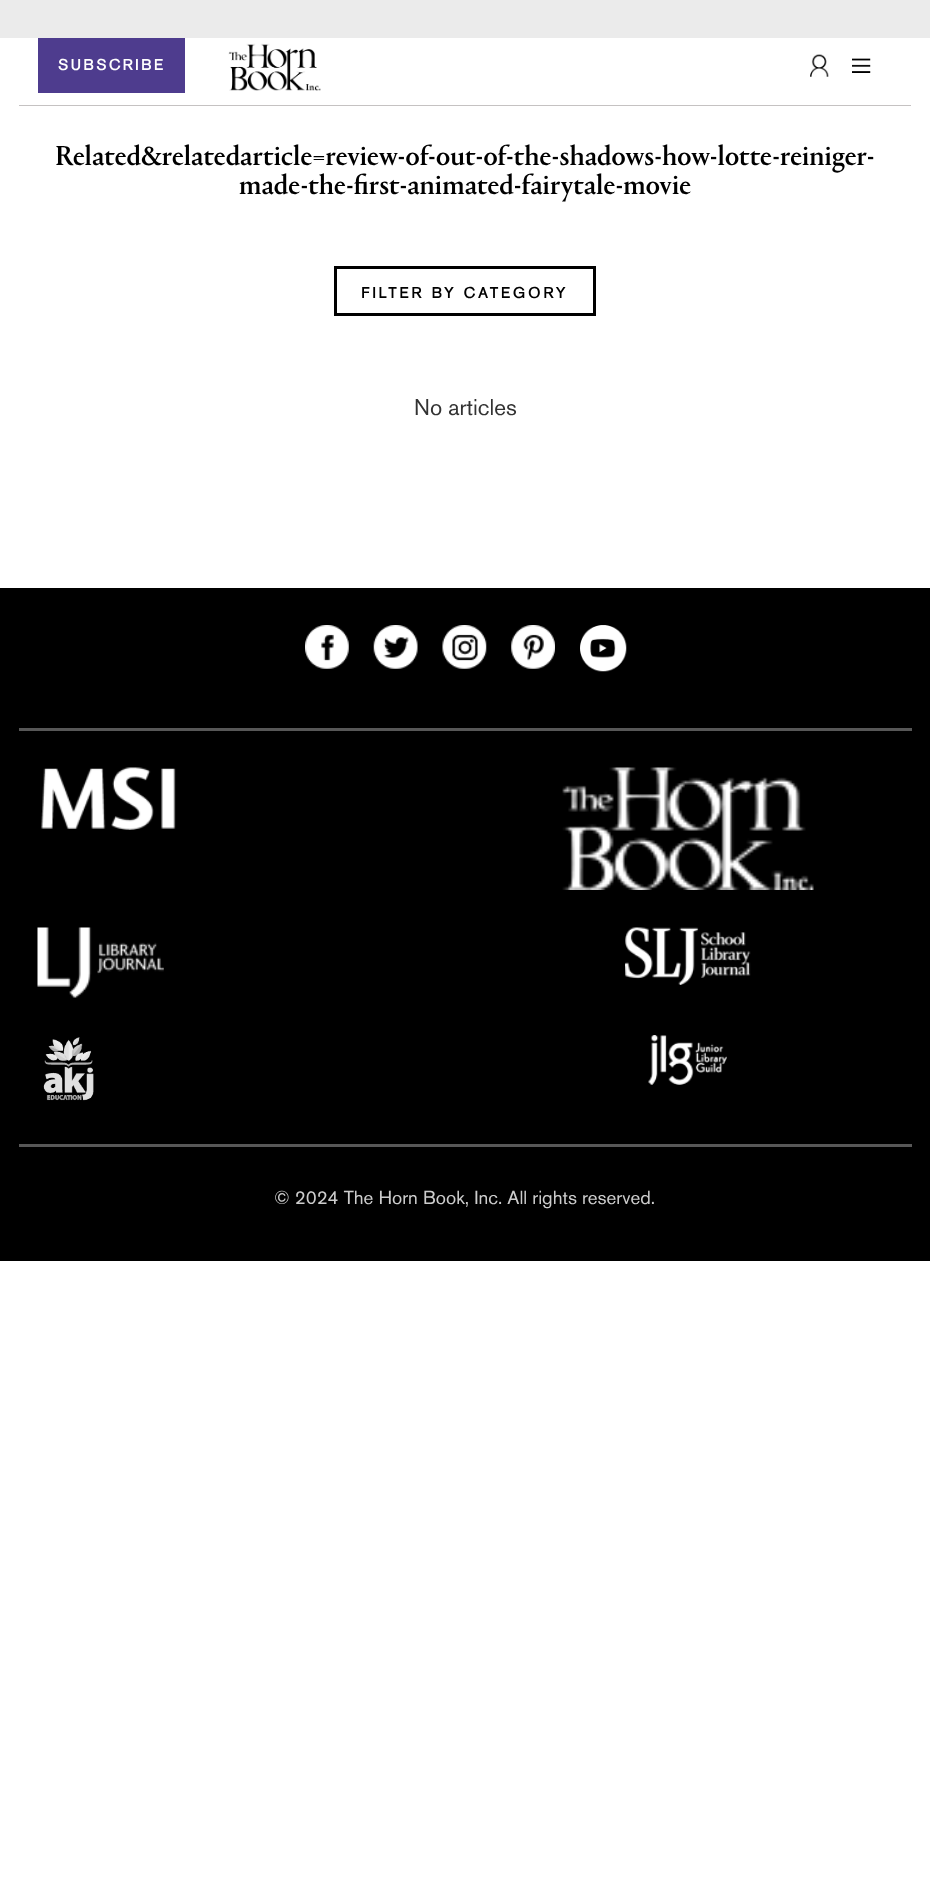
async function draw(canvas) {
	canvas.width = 930;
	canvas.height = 1899;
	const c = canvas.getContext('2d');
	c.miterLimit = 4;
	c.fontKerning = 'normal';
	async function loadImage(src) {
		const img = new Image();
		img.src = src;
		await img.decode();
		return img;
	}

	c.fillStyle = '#fff';
	c.fillRect(0, 0, 930, 1899);
	c.fillStyle = '#ebebeb';
	c.fillRect(0, 0, 930, 38);
	c.fillStyle = '#4e3c8e';
	c.fillRect(38, 38, 147, 55);
	c.letterSpacing = '2.5px';
	c.font = 'bold 15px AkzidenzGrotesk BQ';
	c.fillStyle = '#fff';
	c.fillText('SUBSCRIBE', 58, 70);
	c.drawImage(await loadImage('img1.png'), 228, 43, 93, 48);
	c.drawImage(await loadImage('img2.png'), 810, 54, 19, 23);
	c.drawImage(await loadImage('img3.png'), 852, 58, 19, 15);
	c.fillStyle = '#c5c2c2';
	c.fillRect(19, 105, 892, 1);
	c.letterSpacing = '0px';
	c.font = '500 28.75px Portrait';
	c.fillStyle = '#000';
	c.fillText('Related&relatedarticle=review-of-out-of-the-shadows-how-lotte-reiniger-', 55, 165);
	c.fillText('made-the-first-animated-fairytale-movie', 239, 194);
	c.strokeStyle = '#000';
	c.lineWidth = 3;
	c.strokeRect(335.5, 267.5, 259, 47);
	c.letterSpacing = '3px';
	c.font = 'bold 15px AkzidenzGrotesk BQ';
	c.fillText('FILTER BY CATEGORY', 361, 298);
	c.letterSpacing = '0px';
	c.font = '500 22.5px AkzidenzGrotesk BQ';
	c.fillStyle = '#333';
	c.fillText('No articles', 414, 415);
	c.fillStyle = '#000';
	c.fillRect(0, 588, 930, 673);
	c.drawImage(await loadImage('img4.png'), 305, 625, 44, 44);
	c.drawImage(await loadImage('img5.png'), 373, 625, 45, 44);
	c.drawImage(await loadImage('img6.png'), 442, 625, 45, 44);
	c.drawImage(await loadImage('img7.png'), 511, 625, 44, 44);
	c.drawImage(await loadImage('img8.png'), 580, 625, 47, 47);
	c.fillStyle = '#575757';
	c.fillRect(19, 728, 893, 3);
	c.drawImage(await loadImage('img9.png'), 41, 767, 135, 63);
	c.drawImage(await loadImage('img10.png'), 562, 767, 252, 123);
	c.drawImage(await loadImage('img11.png'), 37, 927, 127, 71);
	c.drawImage(await loadImage('img12.png'), 625, 927, 126, 58);
	c.drawImage(await loadImage('img13.png'), 43, 1037, 51, 64);
	c.drawImage(await loadImage('img14.png'), 648, 1035, 79, 50);
	c.fillRect(19, 1144, 893, 3);
	c.font = '500 18.75px AkzidenzGrotesk BQ';
	c.fillStyle = '#ccc';
	c.fillText('© 2024 The Horn Book, Inc. All rights reserved.', 274, 1204);
}

draw(document.querySelector('canvas'));
